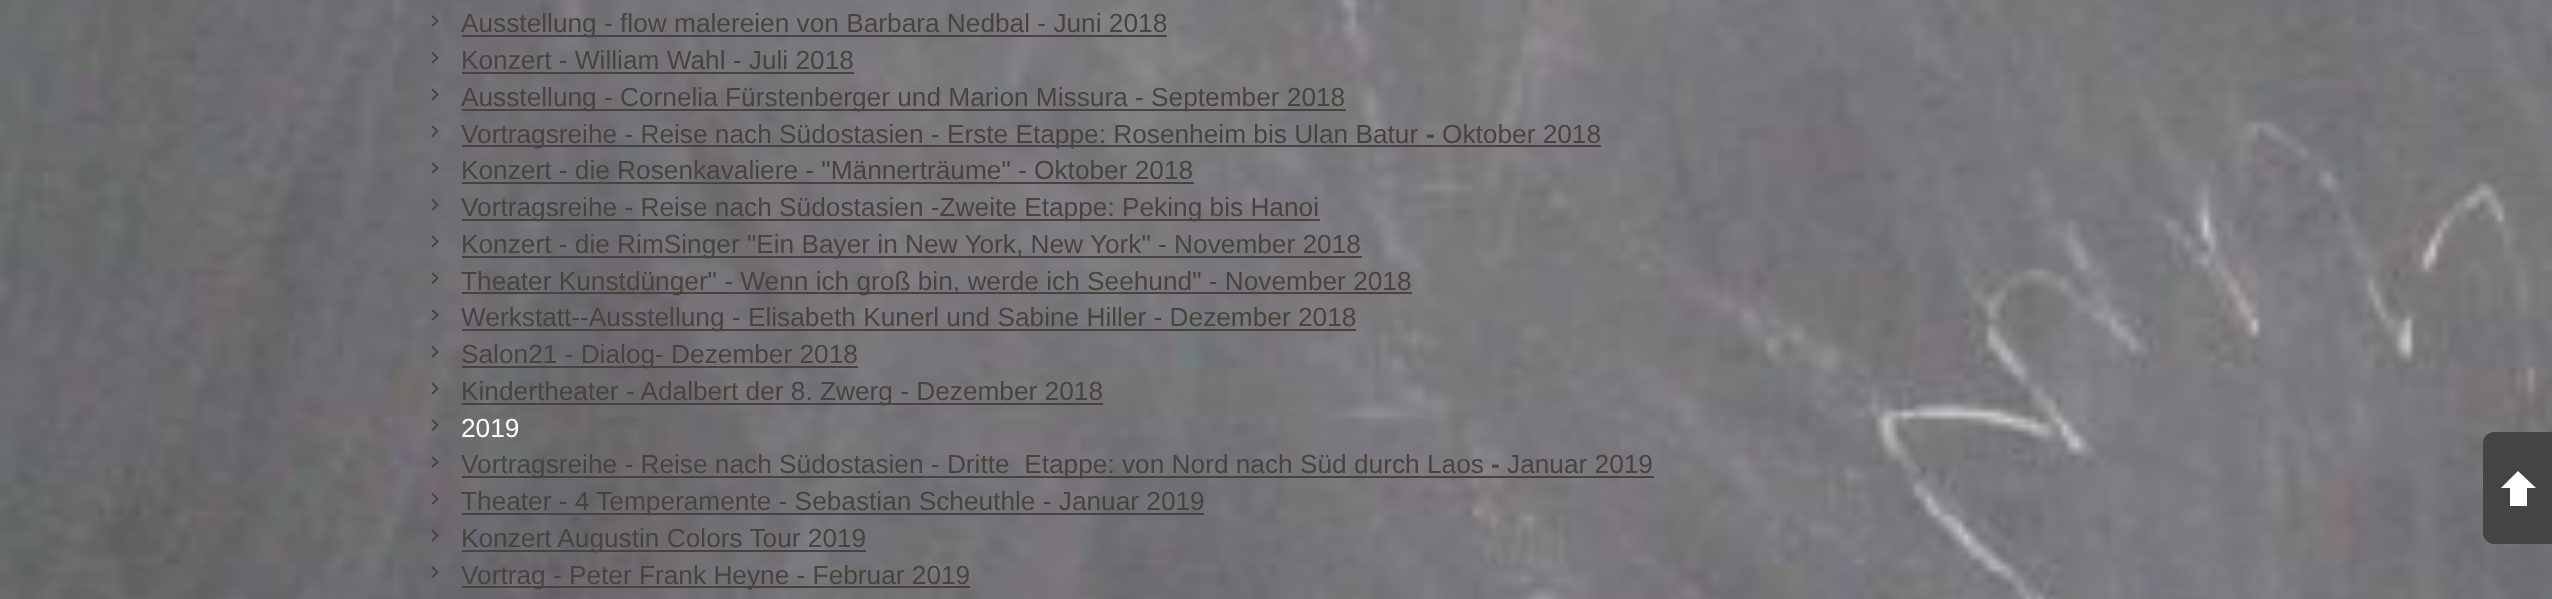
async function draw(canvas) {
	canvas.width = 2552;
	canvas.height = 599;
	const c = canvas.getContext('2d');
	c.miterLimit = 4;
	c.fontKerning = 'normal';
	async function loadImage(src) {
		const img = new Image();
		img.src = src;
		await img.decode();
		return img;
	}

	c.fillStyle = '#fff';
	c.fillRect(0, 0, 2552, 599);
	c.drawImage(await loadImage('img1.png'), 0, 0, 2552, 599);
	c.beginPath();
	c.moveTo(432, 16);
	c.lineTo(437.5, 21);
	c.lineTo(432, 26);
	c.strokeStyle = '#444';
	c.lineWidth = 1.8;
	c.stroke();
	c.fillStyle = '#47443f';
	c.fillRect(462, 35, 705, 2);
	c.font = '26.25px Liberation Sans';
	c.fillText('Ausstellung - flow malereien von Barbara Nedbal - Juni 2018', 461, 32);
	c.beginPath();
	c.moveTo(432, 52.5);
	c.lineTo(437.5, 58);
	c.lineTo(432, 63);
	c.stroke();
	c.fillText('Konzert - William Wahl - Juli 2018', 461, 69);
	c.fillRect(462, 72, 392, 2);
	c.beginPath();
	c.moveTo(432, 89);
	c.lineTo(437.5, 94.5);
	c.lineTo(432, 100);
	c.stroke();
	c.fillRect(462, 109, 884, 2);
	c.fillText('Ausstellung - Cornelia Fürstenberger und Marion Missura - September 2018', 461, 106);
	c.beginPath();
	c.moveTo(432, 126);
	c.lineTo(437.5, 131);
	c.lineTo(432, 136.5);
	c.stroke();
	c.fillRect(462, 145, 1139, 2);
	c.fillText('Vortragsreihe - Reise nach Südostasien - Erste Etappe: Rosenheim bis Ulan Batur', 461, 143);
	c.font = 'bold 26.25px Liberation Sans';
	c.fillText('-', 1426, 143);
	c.font = '26.25px Liberation Sans';
	c.fillText('Oktober 2018', 1442, 143);
	c.beginPath();
	c.moveTo(432, 163);
	c.lineTo(437.5, 168);
	c.lineTo(432, 173);
	c.stroke();
	c.fillText('Konzert - die Rosenkavaliere - "Männerträume" - Oktober 2018', 461, 179);
	c.fillRect(462, 182, 732, 2);
	c.beginPath();
	c.moveTo(432, 199.5);
	c.lineTo(437.5, 205);
	c.lineTo(432, 210);
	c.stroke();
	c.fillRect(462, 219, 858, 2);
	c.fillText('Vortragsreihe - Reise nach Südostasien -Zweite Etappe: Peking bis Hanoi', 461, 216);
	c.beginPath();
	c.moveTo(432, 236);
	c.lineTo(437.5, 241.5);
	c.lineTo(432, 247);
	c.stroke();
	c.fillRect(462, 256, 900, 2);
	c.fillText('Konzert - die RimSinger "Ein Bayer in New York, New York" - November 2018', 461, 253);
	c.beginPath();
	c.moveTo(432, 273);
	c.lineTo(437.5, 278);
	c.lineTo(432, 283.5);
	c.stroke();
	c.fillRect(462, 292, 950, 2);
	c.fillText('Theater Kunstdünger" - Wenn ich groß bin, werde ich Seehund" - November 2018', 461, 290);
	c.beginPath();
	c.moveTo(432, 310);
	c.lineTo(437.5, 315);
	c.lineTo(432, 320);
	c.stroke();
	c.fillRect(462, 329, 894, 2);
	c.fillText('Werkstatt--Ausstellung - Elisabeth Kunerl und Sabine Hiller - Dezember 2018', 461, 326);
	c.beginPath();
	c.moveTo(432, 346.5);
	c.lineTo(437.5, 352);
	c.lineTo(432, 357);
	c.stroke();
	c.fillRect(462, 366, 396, 2);
	c.fillText('Salon21 - Dialog- Dezember 2018', 461, 363);
	c.beginPath();
	c.moveTo(432, 383);
	c.lineTo(437.5, 388.5);
	c.lineTo(432, 394);
	c.stroke();
	c.fillRect(462, 403, 641, 2);
	c.fillText('Kindertheater - Adalbert der 8. Zwerg - Dezember 2018', 461, 400);
	c.beginPath();
	c.moveTo(432, 420);
	c.lineTo(437.5, 425);
	c.lineTo(432, 430.5);
	c.stroke();
	c.fillStyle = '#fff';
	c.fillText('2019', 461, 437);
	c.beginPath();
	c.moveTo(432, 457);
	c.lineTo(437.5, 462);
	c.lineTo(432, 467);
	c.stroke();
	c.fillStyle = '#47443f';
	c.fillRect(462, 476, 1192, 2);
	c.fillText('Vortragsreihe - Reise nach Südostasien - Dritte  Etappe: von Nord nach Süd durch Laos', 461, 473);
	c.font = 'bold 26.25px Liberation Sans';
	c.fillText('-', 1491, 473);
	c.font = '26.25px Liberation Sans';
	c.fillText('Januar 2019', 1507, 473);
	c.beginPath();
	c.moveTo(432, 493.5);
	c.lineTo(437.5, 499);
	c.lineTo(432, 504);
	c.stroke();
	c.fillRect(462, 513, 742, 2);
	c.fillText('Theater - 4 Temperamente - Sebastian Scheuthle - Januar 2019', 461, 510);
	c.beginPath();
	c.moveTo(432, 530);
	c.lineTo(437.5, 535.5);
	c.lineTo(432, 541);
	c.stroke();
	c.fillRect(462, 550, 404, 2);
	c.fillText('Konzert Augustin Colors Tour 2019', 461, 547);
	c.beginPath();
	c.moveTo(432, 567);
	c.lineTo(437.5, 572);
	c.lineTo(432, 577.5);
	c.stroke();
	c.fillRect(462, 586, 508, 2);
	c.fillText('Vortrag - Peter Frank Heyne - Februar 2019', 461, 584);
	c.fillStyle = '#444';
	c.beginPath();
	c.moveTo(2494, 432);
	c.lineTo(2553, 432);
	c.lineTo(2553, 544);
	c.lineTo(2494, 544);
	c.bezierCurveTo(2488, 544, 2483, 539, 2483, 533);
	c.lineTo(2483, 443);
	c.bezierCurveTo(2483, 437, 2488, 432, 2494, 432);
	c.closePath();
	c.fill();
	c.fillStyle = '#fff';
	c.beginPath();
	c.moveTo(2536, 488);
	c.lineTo(2501, 488);
	c.lineTo(2518, 471);
	c.closePath();
	c.fill();
	c.fillRect(2510, 488, 17, 18);
}

draw(document.querySelector('canvas'));
